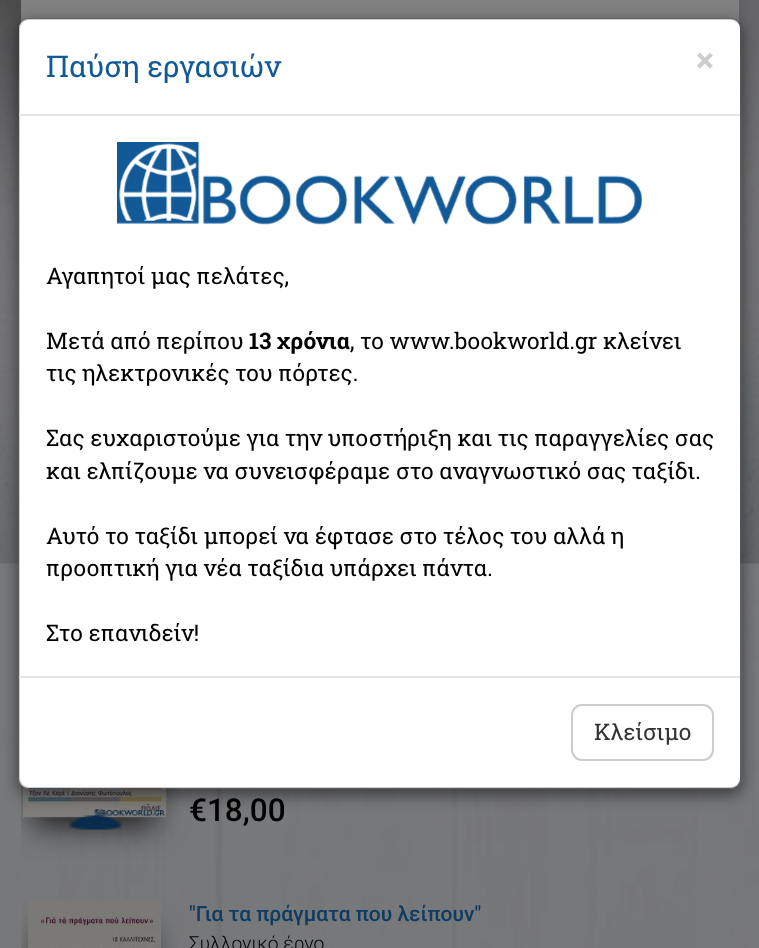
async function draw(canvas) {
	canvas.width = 759;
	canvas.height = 948;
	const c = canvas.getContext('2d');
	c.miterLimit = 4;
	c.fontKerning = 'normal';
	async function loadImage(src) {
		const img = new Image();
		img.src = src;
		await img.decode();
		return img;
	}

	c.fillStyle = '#fff';
	c.fillRect(0, 0, 759, 948);
	c.drawImage(await loadImage('img2.png'), 0, 563, 759, 385);
	c.drawImage(await loadImage('img3.png'), 0, 0, 759, 564);
	c.fillStyle = '#808080';
	c.fillRect(21, 0, 718, 24);
	c.save();
	c.beginPath();
	c.rect(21, 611, 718, 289);
	c.clip();
	c.fillStyle = '#1e1e1e';
	c.filter = 'blur(15px)';
	c.beginPath();
	c.rect(33, 641, 123, 185);
	c.fill();
	c.filter = 'none';
	c.restore();
	c.drawImage(await loadImage('img4.png'), 22, 785, 145, 33);
	c.drawImage(await loadImage('img5.png'), 68, 815, 55, 15);
	c.save();
	c.beginPath();
	c.moveTo(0, 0);
	c.lineTo(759, 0);
	c.lineTo(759, 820);
	c.lineTo(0, 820);
	c.closePath();
	c.moveTo(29, 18);
	c.lineTo(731, 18);
	c.bezierCurveTo(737, 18, 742, 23, 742, 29);
	c.lineTo(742, 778);
	c.bezierCurveTo(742, 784, 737, 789, 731, 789);
	c.lineTo(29, 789);
	c.bezierCurveTo(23, 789, 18, 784, 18, 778);
	c.lineTo(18, 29);
	c.bezierCurveTo(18, 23, 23, 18, 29, 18);
	c.closePath();
	c.clip('evenodd');
	c.fillStyle = '#00000080';
	c.filter = 'blur(8px)';
	c.beginPath();
	c.roundRect(18, 23, 724, 772, 11);
	c.fill();
	c.filter = 'none';
	c.restore();
	c.fillStyle = '#fff';
	c.beginPath();
	c.roundRect(19, 19, 721, 769, 9);
	c.fill();
	c.beginPath();
	c.roundRect(19, 19, 722, 769, 10);
	c.strokeStyle = '#00000033';
	c.lineWidth = 2;
	c.stroke();
	c.fillStyle = '#e5e5e5';
	c.fillRect(19, 114, 721, 2);
	c.font = '29.75px Roboto Slab';
	c.fillStyle = '#125997';
	c.fillText('Παύση εργασιών', 46, 77);
	c.font = 'bold 34px Roboto Slab';
	c.fillStyle = '#ccc';
	c.fillText('×', 696, 72);
	c.drawImage(await loadImage('img1.png'), 117, 142, 525, 83);
	c.font = '22.75px Roboto Slab';
	c.fillStyle = '#000';
	c.fillText('Αγαπητοί μας πελάτες,', 46, 284);
	c.fillText('Μετά από περίπου', 46, 349);
	c.font = 'bold 22.75px Roboto Slab';
	c.fillText('13 χρόνια', 249, 349);
	c.font = '22.75px Roboto Slab';
	for (const [text, x, y] of [
		[', το www.bookworld.gr κλείνει', 350, 349],
		['τις ηλεκτρονικές του πόρτες.', 46, 381],
		['Σας ευχαριστούμε για την υποστήριξη και τις παραγγελίες σας', 46, 446],
		['και ελπίζουμε να συνεισφέραμε στο αναγνωστικό σας ταξίδι.', 46, 479],
		['Αυτό το ταξίδι μπορεί να έφτασε στο τέλος του αλλά η', 46, 544],
		['προοπτική για νέα ταξίδια υπάρχει πάντα.', 46, 576],
		['Στο επανιδείν!', 46, 641],
	]) {
		c.fillText(text, x, y);
	}
	c.fillStyle = '#e5e5e5';
	c.fillRect(19, 676, 721, 2);
	c.beginPath();
	c.roundRect(572, 705, 141, 55, 10);
	c.strokeStyle = '#ccc';
	c.stroke();
	c.fillStyle = '#333';
	c.fillText('Κλείσιμο', 594, 740);
	c.font = '500 31.5px Roboto';
	c.fillStyle = '#000';
	c.fillText('€18,00', 189, 821);
	c.save();
	c.beginPath();
	c.rect(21, 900, 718, 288);
	c.clip();
	c.fillStyle = '#1e1e1e';
	c.filter = 'blur(15px)';
	c.beginPath();
	c.rect(39, 929, 112, 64);
	c.fill();
	c.filter = 'none';
	c.restore();
	c.drawImage(await loadImage('img6.png'), 28, 900, 133, 48);
	c.font = '500 21px Roboto';
	c.fillStyle = '#0e3b63';
	c.fillText('"Για τα πράγματα που λείπουν"', 189, 921);
	c.font = '300 19.25px Roboto';
	c.fillStyle = '#000';
	c.fillText('Συλλογικό έργο', 189, 950);
}

draw(document.querySelector('canvas'));
